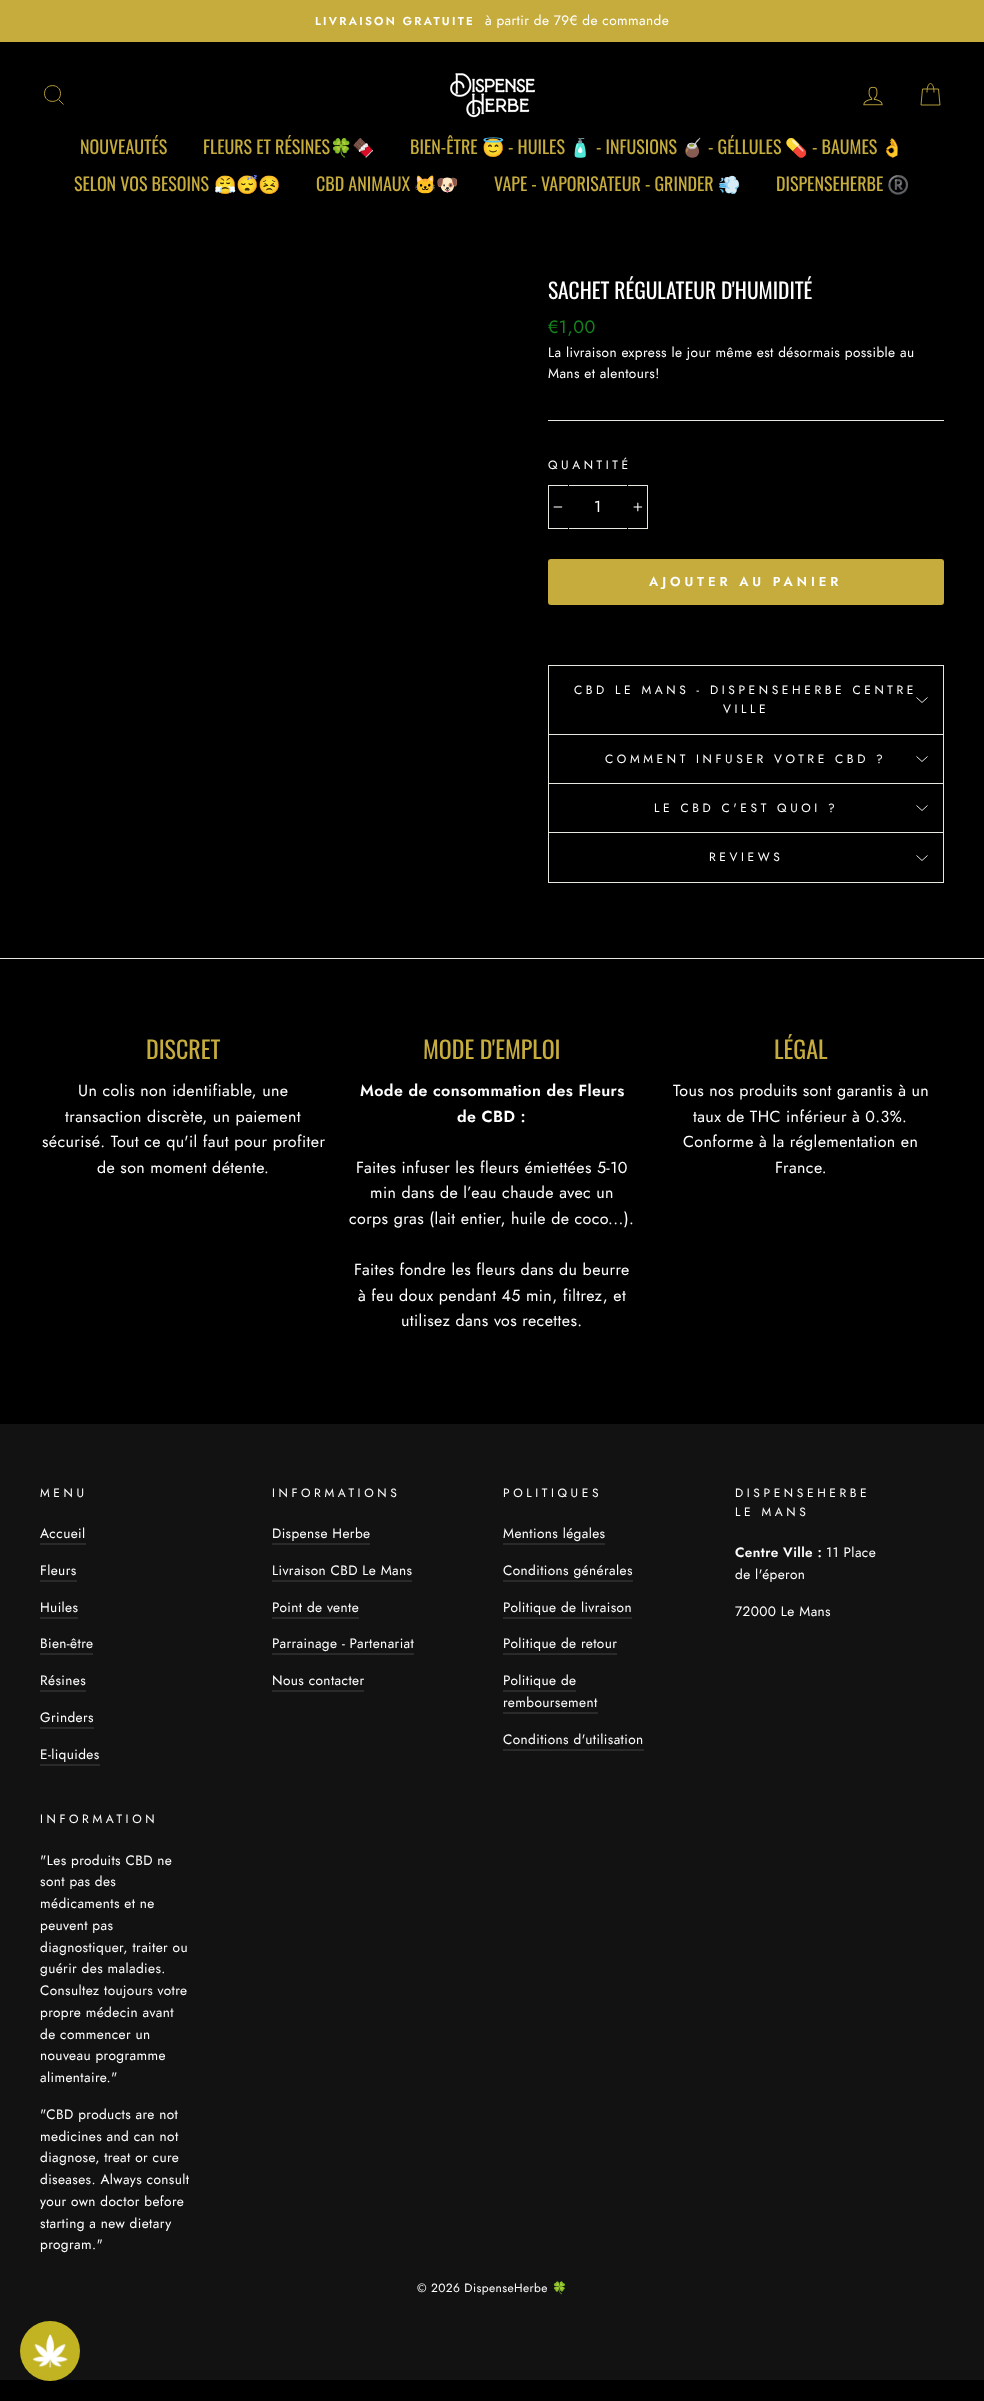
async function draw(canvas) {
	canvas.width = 984;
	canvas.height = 2401;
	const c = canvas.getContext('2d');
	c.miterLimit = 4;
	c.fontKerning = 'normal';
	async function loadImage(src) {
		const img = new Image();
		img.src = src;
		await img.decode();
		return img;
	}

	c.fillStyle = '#000';
	c.fillRect(0, 0, 984, 2401);
	c.fillStyle = '#c6ac3d';
	c.fillRect(0, 0, 984, 42);
	c.letterSpacing = '2.3px';
	c.font = '600 11.5px Jost';
	c.fillStyle = '#fff';
	c.fillText('LIVRAISON GRATUITE', 315, 25);
	c.letterSpacing = '0.4px';
	c.font = '13.6px Jost';
	c.fillText('à partir de 79€ de commande', 485, 25);
	c.beginPath();
	c.moveTo(60.5, 93.5);
	c.bezierCurveTo(60.5, 104, 44.5, 104, 44.5, 93.5);
	c.bezierCurveTo(44.5, 83, 60.5, 83, 60.5, 93.5);
	c.closePath();
	c.moveTo(63.5, 104.5);
	c.lineTo(58.5, 99.5);
	c.strokeStyle = '#c6ac3d';
	c.lineWidth = 0.9;
	c.stroke();
	c.drawImage(await loadImage('img1.png'), 450, 73, 85, 45);
	c.drawImage(await loadImage('img2.png'), 863, 86, 20, 20);
	c.beginPath();
	c.moveTo(927, 92.5);
	c.bezierCurveTo(927, 80.5, 934, 80.5, 934, 92.5);
	c.moveTo(922.5, 89);
	c.lineTo(938.5, 89);
	c.lineTo(940, 105);
	c.lineTo(921, 105);
	c.closePath();
	c.stroke();
	c.letterSpacing = '0px';
	c.font = '18px Oswald';
	c.fillStyle = '#c6ac3d';
	c.fillText('NOUVEAUTÉS', 80, 154);
	c.fillText('FLEURS ET RÉSINES', 203, 154);
	c.font = '18px Noto Color Emoji';
	c.fillText('🍀🍫', 330, 154);
	c.font = '18px Oswald';
	c.fillText('BIEN-ÊTRE', 410, 154);
	c.font = '18px Noto Color Emoji';
	c.fillText('😇', 482, 154);
	c.font = '18px Oswald';
	c.fillText('- HUILES', 508, 154);
	c.font = '18px Noto Color Emoji';
	c.fillText('🧴', 569, 154);
	c.font = '18px Oswald';
	c.fillText('- INFUSIONS', 596, 154);
	c.font = '18px Noto Color Emoji';
	c.fillText('🧉', 681, 154);
	c.font = '18px Oswald';
	c.fillText('- GÉLLULES', 708, 154);
	c.font = '18px Noto Color Emoji';
	c.fillText('💊', 785, 154);
	c.font = '18px Oswald';
	c.fillText('- BAUMES', 812, 154);
	c.font = '18px Noto Color Emoji';
	c.fillText('👌', 881, 154);
	c.font = '18px Oswald';
	c.fillText('SELON VOS BESOINS', 74, 191);
	c.font = '18px Noto Color Emoji';
	c.fillText('😤😴😣', 214, 191);
	c.font = '18px Oswald';
	c.fillText('CBD ANIMAUX', 316, 191);
	c.font = '18px Noto Color Emoji';
	c.fillText('🐱🐶', 414, 191);
	c.font = '18px Oswald';
	c.fillText('VAPE - VAPORISATEUR - GRINDER', 494, 191);
	c.font = '18px Noto Color Emoji';
	c.fillText('💨', 718, 191);
	c.font = '18px Oswald';
	c.fillText('DISPENSEHERBE', 776, 191);
	c.font = '18px Noto Color Emoji';
	c.fillText('®️', 887, 191);
	c.font = '21.5px Oswald';
	c.fillStyle = '#fff';
	c.fillText('SACHET RÉGULATEUR D\'HUMIDITÉ', 548, 299);
	c.letterSpacing = '0.4px';
	c.font = '18px Jost';
	c.fillStyle = '#17811e';
	c.fillText('€1,00', 548, 333);
	c.font = '13.6px Jost';
	c.fillStyle = '#fff';
	c.fillText('La livraison express le jour même est désormais possible au', 548, 357);
	c.fillText('Mans et alentours!', 548, 378);
	c.fillStyle = '#e8e8e1';
	c.fillRect(548, 420, 396, 1);
	c.letterSpacing = '3.6px';
	c.font = '12px Jost';
	c.fillStyle = '#fff';
	c.fillText('QUANTITÉ', 548, 469);
	c.strokeStyle = '#e8e8e1';
	c.lineWidth = 1;
	c.strokeRect(548.5, 485.5, 99, 43);
	c.fillStyle = '#000';
	c.fillRect(568, 485, 1, 44);
	c.drawImage(await loadImage('img3.png'), 553, 506, 10, 2);
	c.letterSpacing = '0.4px';
	c.font = '16px Jost';
	c.fillStyle = '#fff';
	c.fillText('1', 594, 512);
	c.fillStyle = '#000';
	c.fillRect(627, 485, 1, 44);
	c.drawImage(await loadImage('img4.png'), 633, 502, 10, 10);
	c.fillStyle = '#c6ac3d';
	c.beginPath();
	c.roundRect(548, 559, 396, 46, 3);
	c.fill();
	c.letterSpacing = '3.9px';
	c.font = '600 13px Jost';
	c.fillStyle = '#fff';
	c.fillText('AJOUTER AU PANIER', 649, 586);
	for (const [x, y, w, h, color] of [
		[548, 882, 396, 1, '#e8e8e1'],
		[548, 665, 396, 1, '#e8e8e1'],
		[943, 665, 1, 70, '#e8e8e1'],
		[548, 665, 1, 70, '#e8e8e1'],
	]) {
		c.fillStyle = color;
		c.fillRect(x, y, w, h);
	}
	c.letterSpacing = '3.6px';
	c.font = '12px Jost';
	c.fillStyle = '#fff';
	c.fillText('CBD LE MANS - DISPENSEHERBE CENTRE', 574, 694);
	c.beginPath();
	c.moveTo(916.5, 697.5);
	c.lineTo(922, 702.5);
	c.lineTo(927.5, 697.5);
	c.strokeStyle = '#fff';
	c.lineWidth = 0.9;
	c.stroke();
	c.fillText('VILLE', 723, 713);
	for (const [x, y, w, h, color] of [
		[548, 734, 396, 1, '#e8e8e1'],
		[943, 734, 1, 50, '#e8e8e1'],
		[548, 734, 1, 50, '#e8e8e1'],
	]) {
		c.fillStyle = color;
		c.fillRect(x, y, w, h);
	}
	c.fillStyle = '#fff';
	c.fillText('COMMENT INFUSER VOTRE CBD ?', 605, 763);
	c.beginPath();
	c.moveTo(916.5, 756.5);
	c.lineTo(922, 761.5);
	c.lineTo(927.5, 756.5);
	c.stroke();
	for (const [x, y, w, h, color] of [
		[548, 783, 396, 1, '#e8e8e1'],
		[943, 783, 1, 50, '#e8e8e1'],
		[548, 783, 1, 50, '#e8e8e1'],
	]) {
		c.fillStyle = color;
		c.fillRect(x, y, w, h);
	}
	c.fillStyle = '#fff';
	c.fillText('LE CBD C\'EST QUOI ?', 654, 812);
	c.beginPath();
	c.moveTo(916.5, 805.5);
	c.lineTo(922, 810.5);
	c.lineTo(927.5, 805.5);
	c.stroke();
	for (const [x, y, w, h, color] of [
		[548, 832, 396, 1, '#e8e8e1'],
		[943, 832, 1, 50, '#e8e8e1'],
		[548, 832, 1, 50, '#e8e8e1'],
	]) {
		c.fillStyle = color;
		c.fillRect(x, y, w, h);
	}
	c.fillStyle = '#fff';
	c.fillText('REVIEWS', 709, 861);
	c.beginPath();
	c.moveTo(916.5, 855.5);
	c.lineTo(922, 860.5);
	c.lineTo(927.5, 855.5);
	c.stroke();
	c.fillStyle = '#e8e8e1';
	c.fillRect(0, 958, 984, 1);
	c.letterSpacing = '0px';
	c.font = '24px Oswald';
	c.fillStyle = '#c6ac3d';
	c.fillText('DISCRET', 146, 1059);
	c.letterSpacing = '0.4px';
	c.font = '16px Jost';
	c.fillStyle = '#fff';
	for (const [text, x, y] of [
		['Un colis non identifiable, une', 78, 1096],
		['transaction discrète, un paiement', 65, 1122],
		['sécurisé. Tout ce qu\'il faut pour profiter', 42, 1147],
		['de son moment détente.', 97, 1173],
	]) {
		c.fillText(text, x, y);
	}
	c.letterSpacing = '0px';
	c.font = '24px Oswald';
	c.fillStyle = '#c6ac3d';
	c.fillText('MODE D\'EMPLOI', 423, 1059);
	c.letterSpacing = '0.4px';
	c.font = '600 16px Jost';
	c.fillStyle = '#fff';
	c.fillText('Mode de consommation des Fleurs', 360, 1096);
	c.fillText('de CBD :', 457, 1122);
	c.font = '16px Jost';
	for (const [text, x, y] of [
		['Faites infuser les fleurs émiettées 5-10', 356, 1173],
		['min dans de l’eau chaude avec un', 370, 1198],
		['corps gras (lait entier, huile de coco...).', 349, 1224],
		['Faites fondre les fleurs dans du beurre', 354, 1275],
		['à feu doux pendant 45 min, filtrez, et', 358, 1301],
		['utilisez dans vos recettes.', 401, 1326],
	]) {
		c.fillText(text, x, y);
	}
	c.save();
	c.beginPath();
	c.rect(18, 1034, 926, 337);
	c.clip();
	c.letterSpacing = '0px';
	c.font = '24px Oswald';
	c.fillStyle = '#c6ac3d';
	c.fillText('LÉGAL', 774, 1059);
	c.restore();
	for (const [text, x, y] of [
		['Tous nos produits sont garantis à un', 673, 1096],
		['taux de THC inférieur à 0.3%.', 693, 1122],
		['Conforme à la réglementation en', 683, 1147],
		['France.', 775, 1173],
	]) {
		c.fillText(text, x, y);
	}
	c.fillStyle = '#121212';
	c.fillRect(0, 1424, 984, 956);
	c.letterSpacing = '3.6px';
	c.font = '12px Jost';
	c.fillStyle = '#fff';
	c.fillText('MENU', 40, 1497);
	c.letterSpacing = '0.4px';
	c.font = '13.6px Jost';
	c.fillText('Accueil', 40, 1538);
	c.fillStyle = '#2a2a2a';
	c.fillRect(40, 1543, 46, 2);
	c.fillStyle = '#fff';
	c.fillText('Fleurs', 40, 1575);
	c.fillStyle = '#2a2a2a';
	c.fillRect(40, 1580, 37, 2);
	c.fillStyle = '#fff';
	c.fillText('Huiles', 40, 1612);
	c.fillStyle = '#2a2a2a';
	c.fillRect(40, 1617, 38, 2);
	c.fillStyle = '#fff';
	c.fillText('Bien-être', 40, 1648);
	c.fillStyle = '#2a2a2a';
	c.fillRect(40, 1653, 53, 2);
	c.fillStyle = '#fff';
	c.fillText('Résines', 40, 1685);
	c.fillStyle = '#2a2a2a';
	c.fillRect(40, 1690, 46, 2);
	c.fillStyle = '#fff';
	c.fillText('Grinders', 40, 1722);
	c.fillStyle = '#2a2a2a';
	c.fillRect(40, 1727, 54, 2);
	c.fillStyle = '#fff';
	c.fillText('E-liquides', 40, 1759);
	c.fillStyle = '#2a2a2a';
	c.fillRect(40, 1764, 60, 2);
	c.letterSpacing = '3.6px';
	c.font = '12px Jost';
	c.fillStyle = '#fff';
	c.fillText('INFORMATIONS', 272, 1497);
	c.letterSpacing = '0.4px';
	c.font = '13.6px Jost';
	c.fillText('Dispense Herbe', 272, 1538);
	c.fillStyle = '#2a2a2a';
	c.fillRect(272, 1543, 98, 2);
	c.fillStyle = '#fff';
	c.fillText('Livraison CBD Le Mans', 272, 1575);
	c.fillStyle = '#2a2a2a';
	c.fillRect(272, 1580, 140, 2);
	c.fillStyle = '#fff';
	c.fillText('Point de vente', 272, 1612);
	c.fillStyle = '#2a2a2a';
	c.fillRect(272, 1617, 87, 2);
	c.fillStyle = '#fff';
	c.fillText('Parrainage - Partenariat', 272, 1648);
	c.fillStyle = '#2a2a2a';
	c.fillRect(272, 1653, 142, 2);
	c.fillStyle = '#fff';
	c.fillText('Nous contacter', 272, 1685);
	c.fillStyle = '#2a2a2a';
	c.fillRect(272, 1690, 92, 2);
	c.letterSpacing = '3.6px';
	c.font = '12px Jost';
	c.fillStyle = '#fff';
	c.fillText('POLITIQUES', 503, 1497);
	c.letterSpacing = '0.4px';
	c.font = '13.6px Jost';
	c.fillText('Mentions légales', 503, 1538);
	c.fillStyle = '#2a2a2a';
	c.fillRect(503, 1543, 102, 2);
	c.fillStyle = '#fff';
	c.fillText('Conditions générales', 503, 1575);
	c.fillStyle = '#2a2a2a';
	c.fillRect(503, 1580, 130, 2);
	c.fillStyle = '#fff';
	c.fillText('Politique de livraison', 503, 1612);
	c.fillStyle = '#2a2a2a';
	c.fillRect(503, 1617, 129, 2);
	c.fillStyle = '#fff';
	c.fillText('Politique de retour', 503, 1648);
	c.fillStyle = '#2a2a2a';
	c.fillRect(503, 1653, 114, 2);
	c.fillStyle = '#fff';
	c.fillText('Politique de', 503, 1685);
	c.fillStyle = '#2a2a2a';
	c.fillRect(503, 1690, 73, 2);
	c.fillStyle = '#fff';
	c.fillText('remboursement', 503, 1707);
	c.fillStyle = '#2a2a2a';
	c.fillRect(503, 1712, 95, 2);
	c.fillStyle = '#fff';
	c.fillText('Conditions d\'utilisation', 503, 1744);
	c.fillStyle = '#2a2a2a';
	c.fillRect(503, 1749, 141, 2);
	c.letterSpacing = '3.6px';
	c.font = '12px Jost';
	c.fillStyle = '#fff';
	c.fillText('DISPENSEHERBE', 735, 1497);
	c.fillText('LE MANS', 735, 1516);
	c.letterSpacing = '0.4px';
	c.font = '600 13.6px Jost';
	c.fillText('Centre Ville :', 735, 1557);
	c.font = '13.6px Jost';
	for (const [text, x, y] of [
		['11 Place', 826, 1557],
		['de l\'éperon', 735, 1579],
		['72000 Le Mans', 735, 1616],
	]) {
		c.fillText(text, x, y);
	}
	c.letterSpacing = '3.6px';
	c.font = '12px Jost';
	c.fillText('INFORMATION', 40, 1823);
	c.letterSpacing = '0.4px';
	c.font = '13.6px Jost';
	for (const [text, x, y] of [
		['"Les produits CBD ne', 40, 1865],
		['sont pas des', 40, 1886],
		['médicaments et ne', 40, 1908],
		['peuvent pas', 40, 1930],
		['diagnostiquer, traiter ou', 40, 1952],
		['guérir des maladies.', 40, 1973],
		['Consultez toujours votre', 40, 1995],
		['propre médecin avant', 40, 2017],
		['de commencer un', 40, 2039],
		['nouveau programme', 40, 2060],
		['alimentaire."', 40, 2082],
		['"CBD products are not', 40, 2119],
		['medicines and can not', 40, 2141],
		['diagnose, treat or cure', 40, 2162],
		['diseases. Always consult', 40, 2184],
		['your own doctor before', 40, 2206],
		['starting a new dietary', 40, 2228],
		['program."', 40, 2249],
	]) {
		c.fillText(text, x, y);
	}
	c.font = '12px Jost';
	c.fillText('© 2026 DispenseHerbe', 417, 2292);
	c.font = '12px Noto Color Emoji';
	c.fillText('🍀', 552, 2292);
	c.fillStyle = '#c2b322';
	c.beginPath();
	c.arc(50, 2351, 30, 0, 2 * Math.PI);
	c.fill();
	c.drawImage(await loadImage('img5.png'), 32, 2334, 36, 34);
}

draw(document.querySelector('canvas'));
